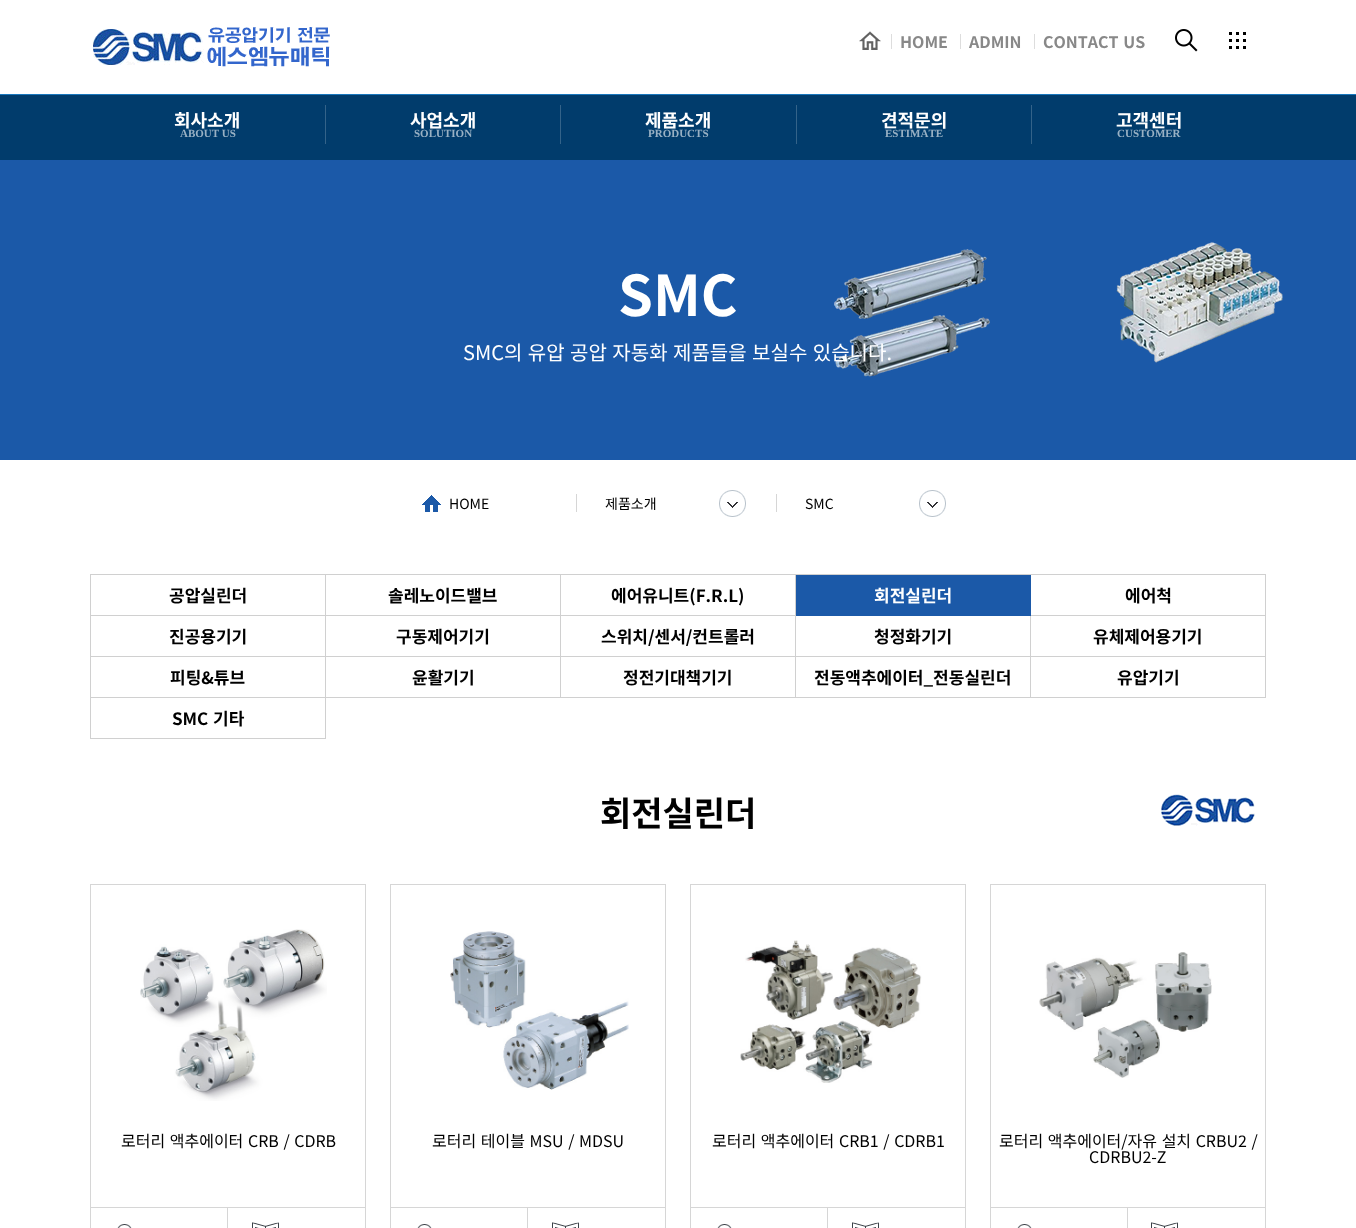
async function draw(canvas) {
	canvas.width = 1356;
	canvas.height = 1228;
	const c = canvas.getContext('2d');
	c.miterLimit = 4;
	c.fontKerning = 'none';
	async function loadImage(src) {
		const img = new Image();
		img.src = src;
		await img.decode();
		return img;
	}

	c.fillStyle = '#fff';
	c.fillRect(0, 0, 1356, 1228);
	c.fillStyle = '#013c6c';
	c.fillRect(0, 95, 1356, 65);
	c.drawImage(await loadImage('img1.png'), 93, 27, 237, 40);
	c.drawImage(await loadImage('img2.png'), 859, 31, 22, 19);
	c.fillStyle = '#ddd';
	c.fillRect(891, 34, 1, 15);
	c.font = 'bold 16px Noto Sans KR';
	c.fillStyle = '#888';
	c.fillText('HOME', 900, 48);
	c.fillStyle = '#ddd';
	c.fillRect(960, 34, 1, 15);
	c.fillStyle = '#888';
	c.fillText('ADMIN', 969, 48);
	c.fillStyle = '#ddd';
	c.fillRect(1034, 34, 1, 15);
	c.wordSpacing = '1px';
	c.fillStyle = '#888';
	c.fillText('CONTACT US', 1043, 48);
	c.drawImage(await loadImage('img3.png'), 1175, 29, 71, 23);
	c.fillStyle = '#1977bd';
	c.fillRect(0, 94, 1356, 1);
	c.wordSpacing = '0px';
	c.font = 'bold 18px Noto Sans KR';
	c.fillStyle = '#fff';
	c.fillText('회사소개', 174, 127);
	c.font = 'bold 11px Liberation Serif';
	c.fillStyle = '#99b1c4';
	c.fillText('ABOUT US', 180, 137);
	c.fillStyle = '#346389';
	c.fillRect(325, 105, 1, 39);
	c.font = 'bold 18px Noto Sans KR';
	c.fillStyle = '#fff';
	c.fillText('사업소개', 410, 127);
	c.font = 'bold 11px Liberation Serif';
	c.fillStyle = '#99b1c4';
	c.fillText('SOLUTION', 414, 137);
	c.fillStyle = '#346389';
	c.fillRect(560, 105, 1, 39);
	c.font = 'bold 18px Noto Sans KR';
	c.fillStyle = '#fff';
	c.fillText('제품소개', 645, 127);
	c.font = 'bold 11px Liberation Serif';
	c.fillStyle = '#99b1c4';
	c.fillText('PRODUCTS', 648, 137);
	c.fillStyle = '#346389';
	c.fillRect(796, 105, 1, 39);
	c.font = 'bold 18px Noto Sans KR';
	c.fillStyle = '#fff';
	c.fillText('견적문의', 881, 127);
	c.font = 'bold 11px Liberation Serif';
	c.fillStyle = '#99b1c4';
	c.fillText('ESTIMATE', 885, 137);
	c.fillStyle = '#346389';
	c.fillRect(1031, 105, 1, 39);
	c.font = 'bold 18px Noto Sans KR';
	c.fillStyle = '#fff';
	c.fillText('고객센터', 1116, 127);
	c.font = 'bold 11px Liberation Serif';
	c.fillStyle = '#99b1c4';
	c.fillText('CUSTOMER', 1117, 137);
	c.fillStyle = '#1b59a8';
	c.fillRect(0, 160, 1356, 300);
	c.drawImage(await loadImage('img4.png'), 834, 242, 449, 135);
	c.font = 'bold 56px Noto Sans KR';
	c.fillStyle = '#fff';
	c.fillText('SMC', 618, 316);
	c.wordSpacing = '1px';
	c.font = '20px Noto Sans KR';
	c.fillText('SMC의 유압 공압 자동화 제품들을 보실수 있습니다.', 463, 360);
	c.drawImage(await loadImage('img5.png'), 422, 495, 19, 17);
	c.wordSpacing = '0px';
	c.font = '14px Noto Sans KR';
	c.fillStyle = '#000';
	c.fillText('HOME', 449, 509);
	c.drawImage(await loadImage('img6.png'), 719, 490, 27, 27);
	c.fillStyle = '#d6d6d6';
	c.fillRect(576, 494, 1, 18);
	c.fillStyle = '#000';
	c.fillText('제품소개', 605, 509);
	c.drawImage(await loadImage('img6.png'), 919, 490, 27, 27);
	c.fillStyle = '#d6d6d6';
	c.fillRect(776, 494, 1, 18);
	c.fillStyle = '#000';
	c.fillText('SMC', 805, 509);
	for (const [x, y, w, h, color] of [
		[90, 574, 1176, 1, '#d0d0d0'],
		[90, 574, 1, 165, '#d0d0d0'],
		[325, 575, 1, 164, '#d0d0d0'],
		[91, 615, 235, 1, '#d0d0d0'],
	]) {
		c.fillStyle = color;
		c.fillRect(x, y, w, h);
	}
	c.font = 'bold 17px Noto Sans KR';
	c.fillStyle = '#000';
	c.fillText('공압실린더', 169, 602);
	c.fillStyle = '#d0d0d0';
	c.fillRect(560, 575, 1, 123);
	c.fillRect(326, 615, 235, 1);
	c.fillStyle = '#000';
	c.fillText('솔레노이드밸브', 388, 602);
	c.fillStyle = '#d0d0d0';
	c.fillRect(795, 575, 1, 123);
	c.fillRect(561, 615, 235, 1);
	c.fillStyle = '#000';
	c.fillText('에어유니트(F.R.L)', 611, 602);
	c.fillStyle = '#1b59a8';
	c.fillRect(796, 575, 235, 41);
	c.fillStyle = '#fff';
	c.fillText('회전실린더', 874, 602);
	c.fillStyle = '#d0d0d0';
	c.fillRect(1265, 575, 1, 123);
	c.fillRect(1031, 615, 235, 1);
	c.fillStyle = '#000';
	c.fillText('에어척', 1125, 602);
	c.fillStyle = '#d0d0d0';
	c.fillRect(91, 656, 705, 1);
	c.fillStyle = '#000';
	for (const [text, x, y] of [
		['진공용기기', 169, 643],
		['구동제어기기', 396, 643],
		['스위치/센서/컨트롤러', 601, 643],
	]) {
		c.fillText(text, x, y);
	}
	c.fillStyle = '#d0d0d0';
	c.fillRect(1030, 616, 1, 82);
	c.fillRect(796, 656, 470, 1);
	c.fillStyle = '#000';
	c.fillText('청정화기기', 874, 643);
	c.fillText('유체제어용기기', 1093, 643);
	c.fillStyle = '#d0d0d0';
	c.fillRect(91, 697, 1175, 1);
	c.fillStyle = '#000';
	for (const [text, x, y] of [
		['피팅&튜브', 170, 684],
		['윤활기기', 412, 684],
		['정전기대책기기', 623, 684],
		['전동액추에이터_전동실린더', 814, 684],
		['유압기기', 1117, 684],
	]) {
		c.fillText(text, x, y);
	}
	c.fillStyle = '#d0d0d0';
	c.fillRect(91, 738, 235, 1);
	c.wordSpacing = '1px';
	c.fillStyle = '#000';
	c.fillText('SMC 기타', 172, 725);
	c.drawImage(await loadImage('img7.png'), 1161, 794, 94, 32);
	c.wordSpacing = '0px';
	c.font = 'bold 34px Noto Sans KR';
	c.fillText('회전실린더', 600, 826);
	c.strokeStyle = '#d6d6d6';
	c.strokeRect(90.5, 884.5, 275, 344);
	c.drawImage(await loadImage('img8.png'), 140, 929, 187, 172);
	c.wordSpacing = '1px';
	c.font = '16px Noto Sans KR';
	c.fillText('로터리 액추에이터 CRB / CDRB', 121, 1147);
	c.fillStyle = '#d6d6d6';
	c.fillRect(91, 1207, 274, 1);
	c.fillRect(227, 1208, 1, 20);
	c.drawImage(await loadImage('img9.png'), 117, 1224, 15, 4);
	c.drawImage(await loadImage('img10.png'), 252, 1222, 27, 6);
	c.strokeRect(390.5, 884.5, 275, 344);
	c.drawImage(await loadImage('img11.png'), 450, 931, 179, 159);
	c.fillStyle = '#000';
	c.fillText('로터리 테이블 MSU / MDSU', 432, 1147);
	c.fillStyle = '#d6d6d6';
	c.fillRect(391, 1207, 274, 1);
	c.fillRect(527, 1208, 1, 20);
	c.drawImage(await loadImage('img9.png'), 417, 1224, 15, 4);
	c.drawImage(await loadImage('img10.png'), 552, 1222, 27, 6);
	c.strokeRect(690.5, 884.5, 275, 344);
	c.drawImage(await loadImage('img12.png'), 740, 940, 182, 143);
	c.fillStyle = '#000';
	c.fillText('로터리 액추에이터 CRB1 / CDRB1', 712, 1147);
	c.fillStyle = '#d6d6d6';
	c.fillRect(691, 1207, 274, 1);
	c.fillRect(827, 1208, 1, 20);
	c.drawImage(await loadImage('img9.png'), 717, 1224, 15, 4);
	c.drawImage(await loadImage('img10.png'), 852, 1222, 27, 6);
	c.strokeRect(990.5, 884.5, 275, 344);
	c.drawImage(await loadImage('img13.png'), 1039, 952, 173, 126);
	c.fillStyle = '#000';
	c.fillText('로터리 액추에이터/자유 설치 CRBU2 /', 999, 1147);
	c.wordSpacing = '0px';
	c.fillText('CDRBU2-Z', 1089, 1163);
	c.fillStyle = '#d6d6d6';
	c.fillRect(991, 1207, 274, 1);
	c.fillRect(1127, 1208, 1, 20);
	c.drawImage(await loadImage('img9.png'), 1017, 1224, 15, 4);
	c.drawImage(await loadImage('img10.png'), 1151, 1222, 27, 6);
}

draw(document.querySelector('canvas'));
